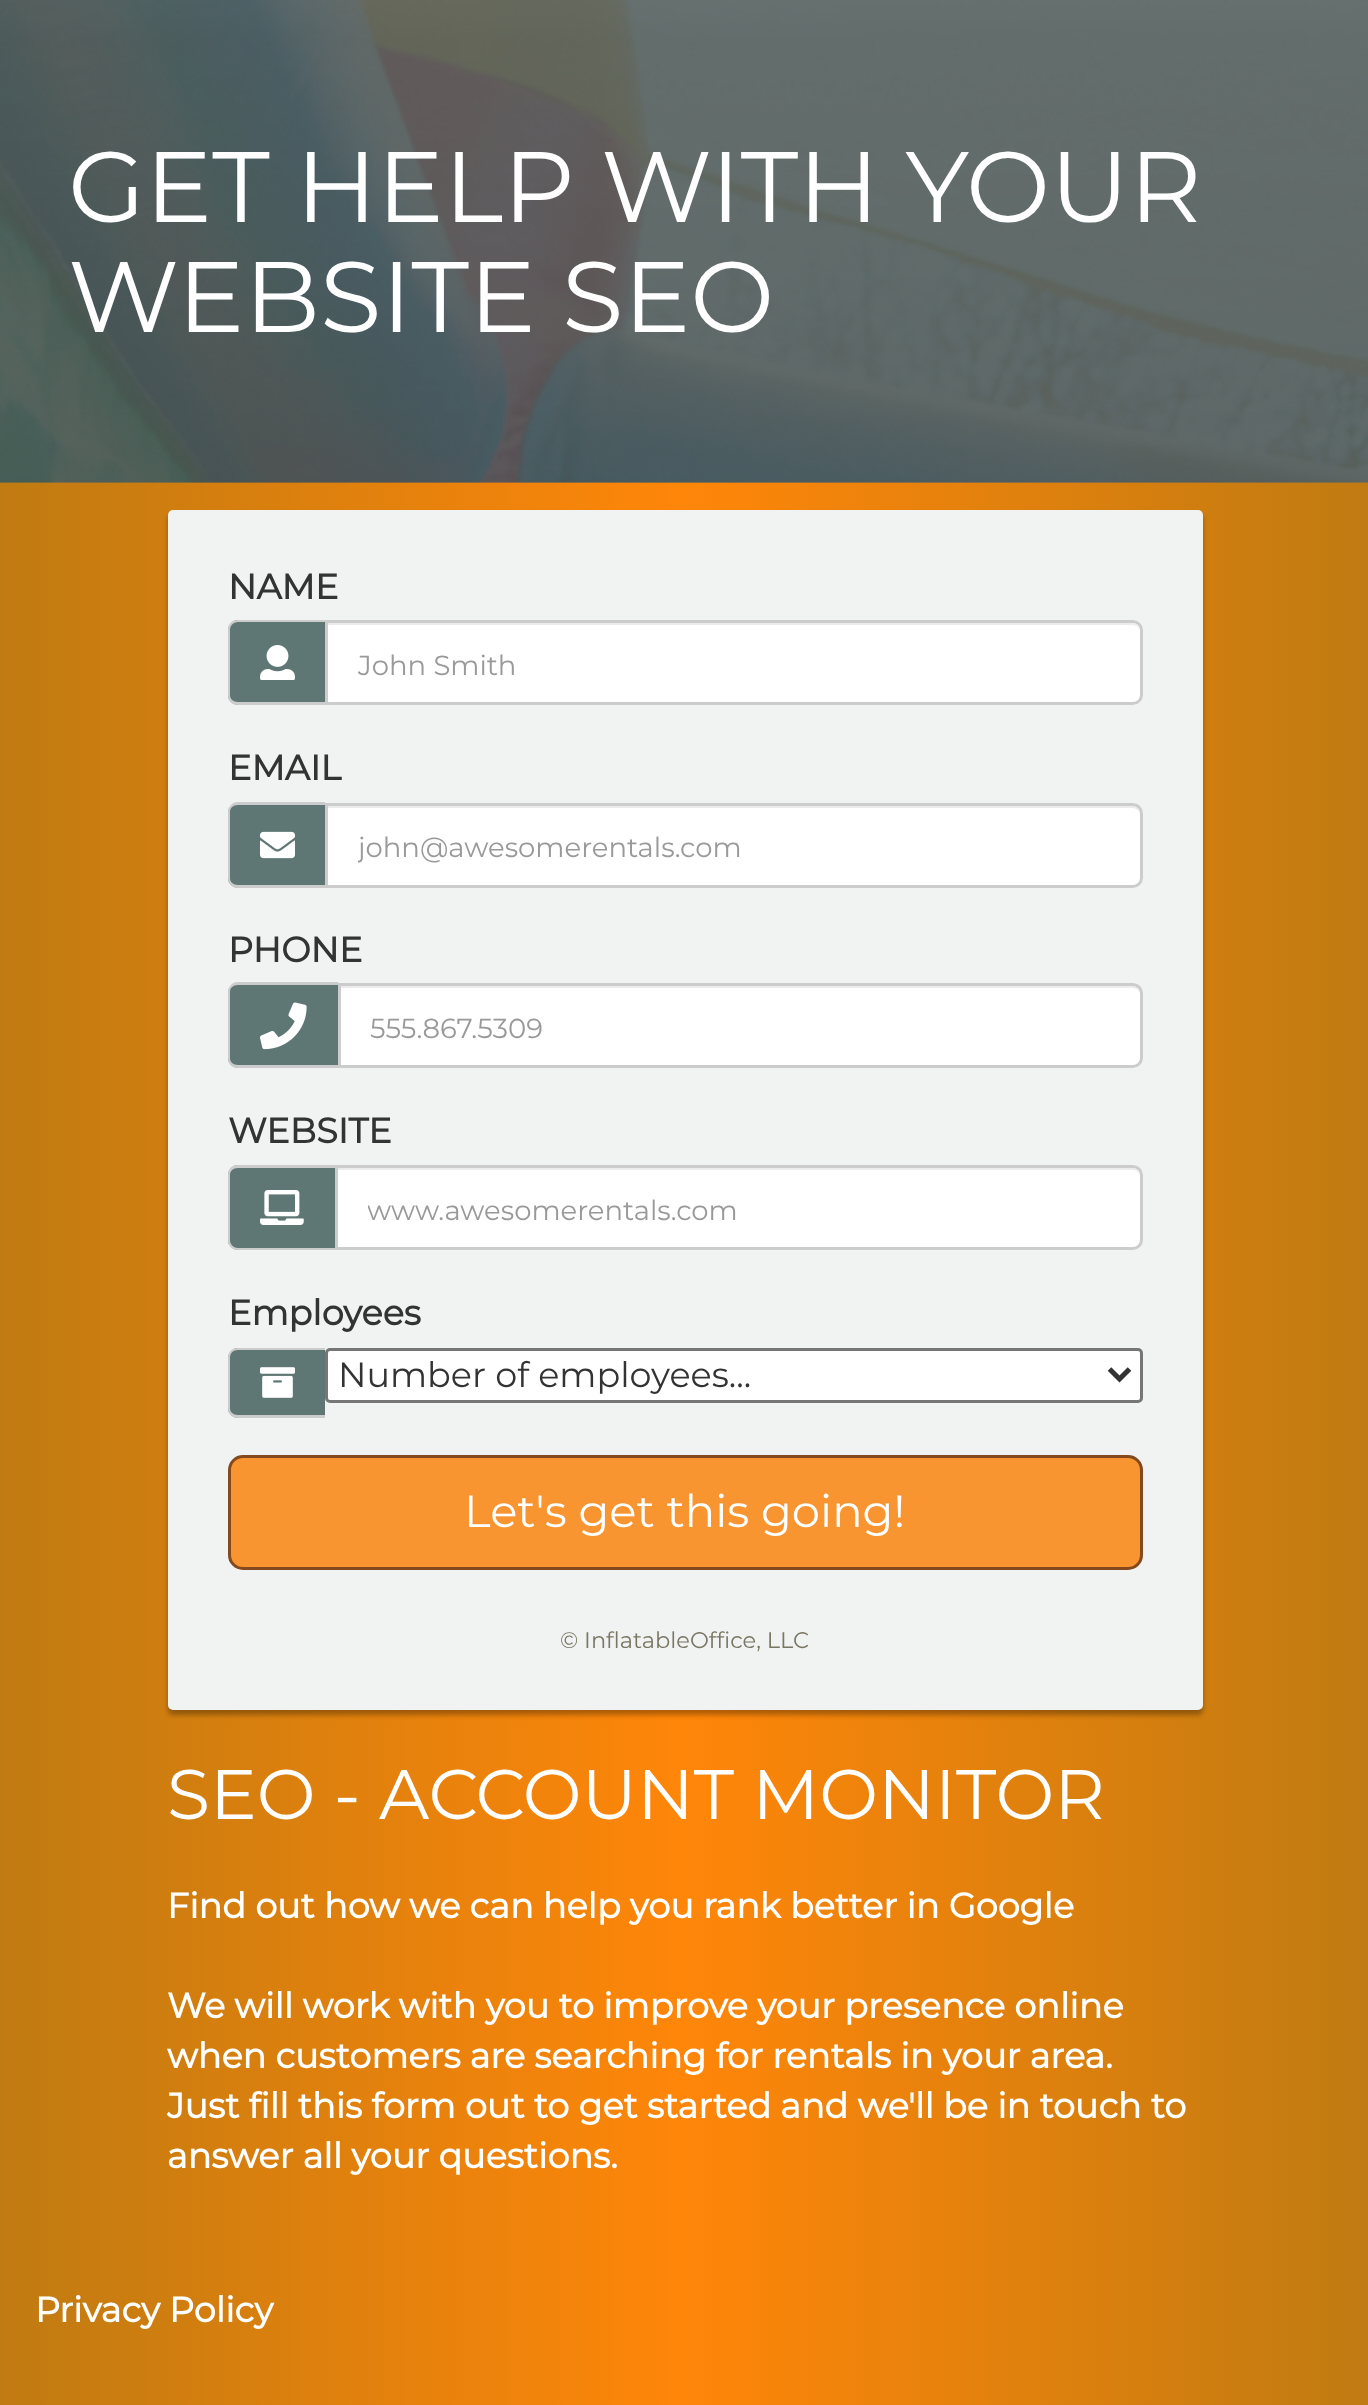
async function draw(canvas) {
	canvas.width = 1368;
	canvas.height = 2405;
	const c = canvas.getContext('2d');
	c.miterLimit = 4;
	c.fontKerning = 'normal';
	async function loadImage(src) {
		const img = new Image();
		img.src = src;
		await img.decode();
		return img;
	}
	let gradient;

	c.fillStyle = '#fff';
	c.fillRect(0, 0, 1368, 2405);
	gradient = c.createLinearGradient(0, 1168, 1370, 1168);
	gradient.addColorStop(0, '#c07b12');
	gradient.addColorStop(0.5, '#ff8609');
	gradient.addColorStop(1, '#c07b12');
	c.fillStyle = gradient;
	c.fillRect(0, 482, 1368, 1923);
	c.drawImage(await loadImage('img1.png'), 0, 0, 1368, 483);
	c.font = '100 100px Montserrat';
	c.fillStyle = '#fff';
	c.fillText('GET HELP WITH YOUR', 68, 222);
	c.fillText('WEBSITE SEO', 68, 332);
	c.fillStyle = '#0000004d';
	c.filter = 'blur(2.5px)';
	c.beginPath();
	c.roundRect(168, 515, 1035, 1200, 5);
	c.fill();
	c.filter = 'none';
	c.fillStyle = '#f1f2f2';
	c.beginPath();
	c.roundRect(168, 510, 1035, 1200, 5);
	c.fill();
	c.font = 'bold 35px Montserrat';
	c.fillStyle = '#333';
	c.fillText('NAME', 228, 599);
	c.fillStyle = '#5f7774';
	c.beginPath();
	c.roundRect(228, 620, 97, 85, [10, 0, 0, 10]);
	c.fill();
	c.fillStyle = '#ccc';
	c.beginPath();
	c.moveTo(238, 620);
	c.lineTo(325, 620);
	c.lineTo(325, 705);
	c.lineTo(238, 705);
	c.bezierCurveTo(232, 705, 228, 701, 228, 695);
	c.lineTo(228, 630);
	c.bezierCurveTo(228, 624, 232, 620, 238, 620);
	c.closePath();
	c.moveTo(238, 622);
	c.lineTo(325, 622);
	c.lineTo(325, 702);
	c.lineTo(238, 702);
	c.bezierCurveTo(233, 702, 230, 699, 230, 695);
	c.lineTo(230, 630);
	c.bezierCurveTo(230, 626, 233, 622, 238, 622);
	c.closePath();
	c.fill('evenodd');
	c.drawImage(await loadImage('img2.png'), 260, 645, 35, 35);
	c.fillStyle = '#fff';
	c.beginPath();
	c.roundRect(325, 620, 818, 85, [0, 10, 10, 0]);
	c.fill();
	c.fillStyle = '#ececec';
	c.beginPath();
	c.moveTo(328, 625);
	c.lineTo(1132, 625);
	c.bezierCurveTo(1137, 625, 1140, 628, 1140, 632);
	c.bezierCurveTo(1140, 627, 1137, 623, 1132, 623);
	c.lineTo(328, 623);
	c.closePath();
	c.fill();
	c.beginPath();
	c.roundRect(326.5, 621.5, 815, 82, [0, 8.5, 8.5, 0]);
	c.strokeStyle = '#ccc';
	c.lineWidth = 3;
	c.stroke();
	c.font = '100 27.5px Montserrat';
	c.fillStyle = '#999';
	c.fillText('John Smith', 358, 675);
	c.font = 'bold 35px Montserrat';
	c.fillStyle = '#333';
	c.fillText('EMAIL', 228, 780);
	c.fillStyle = '#5f7774';
	c.beginPath();
	c.roundRect(228, 803, 97, 85, [10, 0, 0, 10]);
	c.fill();
	c.fillStyle = '#ccc';
	c.beginPath();
	c.moveTo(238, 802);
	c.lineTo(325, 802);
	c.lineTo(325, 888);
	c.lineTo(238, 888);
	c.bezierCurveTo(232, 888, 228, 883, 228, 878);
	c.lineTo(228, 812);
	c.bezierCurveTo(228, 807, 232, 802, 238, 802);
	c.closePath();
	c.moveTo(238, 805);
	c.lineTo(325, 805);
	c.lineTo(325, 885);
	c.lineTo(238, 885);
	c.bezierCurveTo(233, 885, 230, 882, 230, 878);
	c.lineTo(230, 812);
	c.bezierCurveTo(230, 808, 233, 805, 238, 805);
	c.closePath();
	c.fill('evenodd');
	c.drawImage(await loadImage('img3.png'), 260, 831, 35, 28);
	c.fillStyle = '#fff';
	c.beginPath();
	c.roundRect(325, 803, 818, 85, [0, 10, 10, 0]);
	c.fill();
	c.fillStyle = '#ececec';
	c.beginPath();
	c.moveTo(328, 808);
	c.lineTo(1132, 808);
	c.bezierCurveTo(1137, 808, 1140, 811, 1140, 815);
	c.lineTo(1140, 813);
	c.bezierCurveTo(1140, 809, 1136, 805, 1132, 805);
	c.lineTo(328, 805);
	c.closePath();
	c.fill();
	c.beginPath();
	c.roundRect(326.5, 804.5, 815, 82, [0, 8.5, 8.5, 0]);
	c.stroke();
	c.save();
	c.beginPath();
	c.rect(358, 823, 752, 42);
	c.clip();
	c.font = '100 27.5px Montserrat';
	c.fillStyle = '#999';
	c.fillText('john@awesomerentals.com', 358, 857);
	c.restore();
	c.fillStyle = '#333';
	c.fillText('PHONE', 228, 962);
	c.fillStyle = '#5f7774';
	c.beginPath();
	c.roundRect(228, 983, 110, 85, [10, 0, 0, 10]);
	c.fill();
	c.fillStyle = '#ccc';
	c.beginPath();
	c.moveTo(238, 982);
	c.lineTo(338, 982);
	c.lineTo(338, 1068);
	c.lineTo(238, 1068);
	c.bezierCurveTo(232, 1068, 228, 1063, 228, 1058);
	c.lineTo(228, 992);
	c.bezierCurveTo(228, 987, 232, 982, 238, 982);
	c.closePath();
	c.moveTo(238, 985);
	c.lineTo(338, 985);
	c.lineTo(338, 1065);
	c.lineTo(238, 1065);
	c.bezierCurveTo(233, 1065, 230, 1062, 230, 1058);
	c.lineTo(230, 992);
	c.bezierCurveTo(230, 988, 233, 985, 238, 985);
	c.closePath();
	c.fill('evenodd');
	c.drawImage(await loadImage('img4.png'), 260, 1002, 47, 48);
	c.fillStyle = '#fff';
	c.beginPath();
	c.roundRect(338, 983, 805, 85, [0, 10, 10, 0]);
	c.fill();
	c.fillStyle = '#ececec';
	c.beginPath();
	c.moveTo(340, 988);
	c.lineTo(1132, 988);
	c.bezierCurveTo(1137, 988, 1140, 991, 1140, 995);
	c.bezierCurveTo(1140, 990, 1138, 985, 1132, 985);
	c.lineTo(340, 985);
	c.closePath();
	c.fill();
	c.beginPath();
	c.roundRect(339.5, 984.5, 802, 82, [0, 8.5, 8.5, 0]);
	c.stroke();
	c.font = '100 27.5px Montserrat';
	c.fillStyle = '#999';
	c.fillText('555.867.5309', 370, 1038);
	c.font = 'bold 35px Montserrat';
	c.fillStyle = '#333';
	c.fillText('WEBSITE', 228, 1143);
	c.fillStyle = '#5f7774';
	c.beginPath();
	c.roundRect(228, 1165, 107, 85, [10, 0, 0, 10]);
	c.fill();
	c.fillStyle = '#ccc';
	c.beginPath();
	c.moveTo(238, 1165);
	c.lineTo(335, 1165);
	c.lineTo(335, 1250);
	c.lineTo(238, 1250);
	c.bezierCurveTo(232, 1250, 228, 1246, 228, 1240);
	c.lineTo(228, 1175);
	c.bezierCurveTo(228, 1169, 232, 1165, 238, 1165);
	c.closePath();
	c.moveTo(238, 1168);
	c.lineTo(335, 1168);
	c.lineTo(335, 1248);
	c.lineTo(238, 1248);
	c.bezierCurveTo(233, 1248, 230, 1244, 230, 1240);
	c.lineTo(230, 1175);
	c.bezierCurveTo(230, 1171, 233, 1168, 238, 1168);
	c.closePath();
	c.fill('evenodd');
	c.drawImage(await loadImage('img5.png'), 260, 1190, 44, 35);
	c.fillStyle = '#fff';
	c.beginPath();
	c.roundRect(335, 1165, 808, 85, [0, 10, 10, 0]);
	c.fill();
	c.fillStyle = '#ececec';
	c.beginPath();
	c.moveTo(338, 1170);
	c.lineTo(1132, 1170);
	c.bezierCurveTo(1137, 1170, 1140, 1173, 1140, 1178);
	c.bezierCurveTo(1140, 1173, 1138, 1168, 1132, 1168);
	c.lineTo(338, 1168);
	c.closePath();
	c.fill();
	c.beginPath();
	c.roundRect(336.5, 1166.5, 805, 82, [0, 8.5, 8.5, 0]);
	c.stroke();
	c.save();
	c.beginPath();
	c.rect(368, 1185, 742, 43);
	c.clip();
	c.font = '100 27.5px Montserrat';
	c.fillStyle = '#999';
	c.fillText('www.awesomerentals.com', 367, 1220);
	c.restore();
	c.fillStyle = '#333';
	c.fillText('Employees', 228, 1325);
	c.fillStyle = '#5f7774';
	c.beginPath();
	c.roundRect(228, 1348, 97, 70, [10, 0, 0, 10]);
	c.fill();
	c.fillStyle = '#ccc';
	c.beginPath();
	c.moveTo(238, 1348);
	c.lineTo(325, 1348);
	c.lineTo(325, 1418);
	c.lineTo(238, 1418);
	c.bezierCurveTo(232, 1418, 228, 1413, 228, 1408);
	c.lineTo(228, 1358);
	c.bezierCurveTo(228, 1352, 232, 1348, 238, 1348);
	c.closePath();
	c.moveTo(238, 1350);
	c.lineTo(325, 1350);
	c.lineTo(325, 1415);
	c.lineTo(238, 1415);
	c.bezierCurveTo(233, 1415, 230, 1412, 230, 1408);
	c.lineTo(230, 1358);
	c.bezierCurveTo(230, 1353, 233, 1350, 238, 1350);
	c.closePath();
	c.fill('evenodd');
	c.drawImage(await loadImage('img6.png'), 260, 1367, 35, 31);
	c.fillStyle = '#fff';
	c.beginPath();
	c.roundRect(326.5, 1349.5, 815, 52, 3.5);
	c.fill();
	c.strokeStyle = '#767676';
	c.stroke();
	c.beginPath();
	c.moveTo(1109.5, 1369);
	c.lineTo(1119.5, 1379);
	c.lineTo(1129.5, 1369);
	c.strokeStyle = '#333';
	c.lineWidth = 5;
	c.stroke();
	c.font = '100 35px Montserrat';
	c.fillStyle = '#333';
	c.fillText('Number of employees...', 338, 1387);
	c.fillStyle = '#f89531';
	c.beginPath();
	c.roundRect(229.5, 1456.5, 912, 112, 13.5);
	c.fill();
	c.strokeStyle = '#84491d';
	c.lineWidth = 3;
	c.stroke();
	c.font = '100 45px Montserrat';
	c.fillStyle = '#fff';
	c.fillText('Let\'s get this going!', 464, 1527);
	c.font = '100 22.5px Montserrat';
	c.fillStyle = '#797663';
	c.fillText('© InflatableOffice, LLC', 560, 1648);
	c.font = '100 70px Montserrat';
	c.fillStyle = '#fff';
	c.fillText('SEO - ACCOUNT MONITOR', 167, 1819);
	c.font = 'bold 35px Montserrat';
	for (const [text, x, y] of [
		['Find out how we can help you rank better in Google', 167, 1918],
		['We will work with you to improve your presence online', 167, 2018],
		['when customers are searching for rentals in your area.', 167, 2068],
		['Just fill this form out to get started and we\'ll be in touch to', 167, 2118],
		['answer all your questions.', 167, 2168],
		['Privacy Policy', 35, 2322],
	]) {
		c.fillText(text, x, y);
	}
}

draw(document.querySelector('canvas'));
